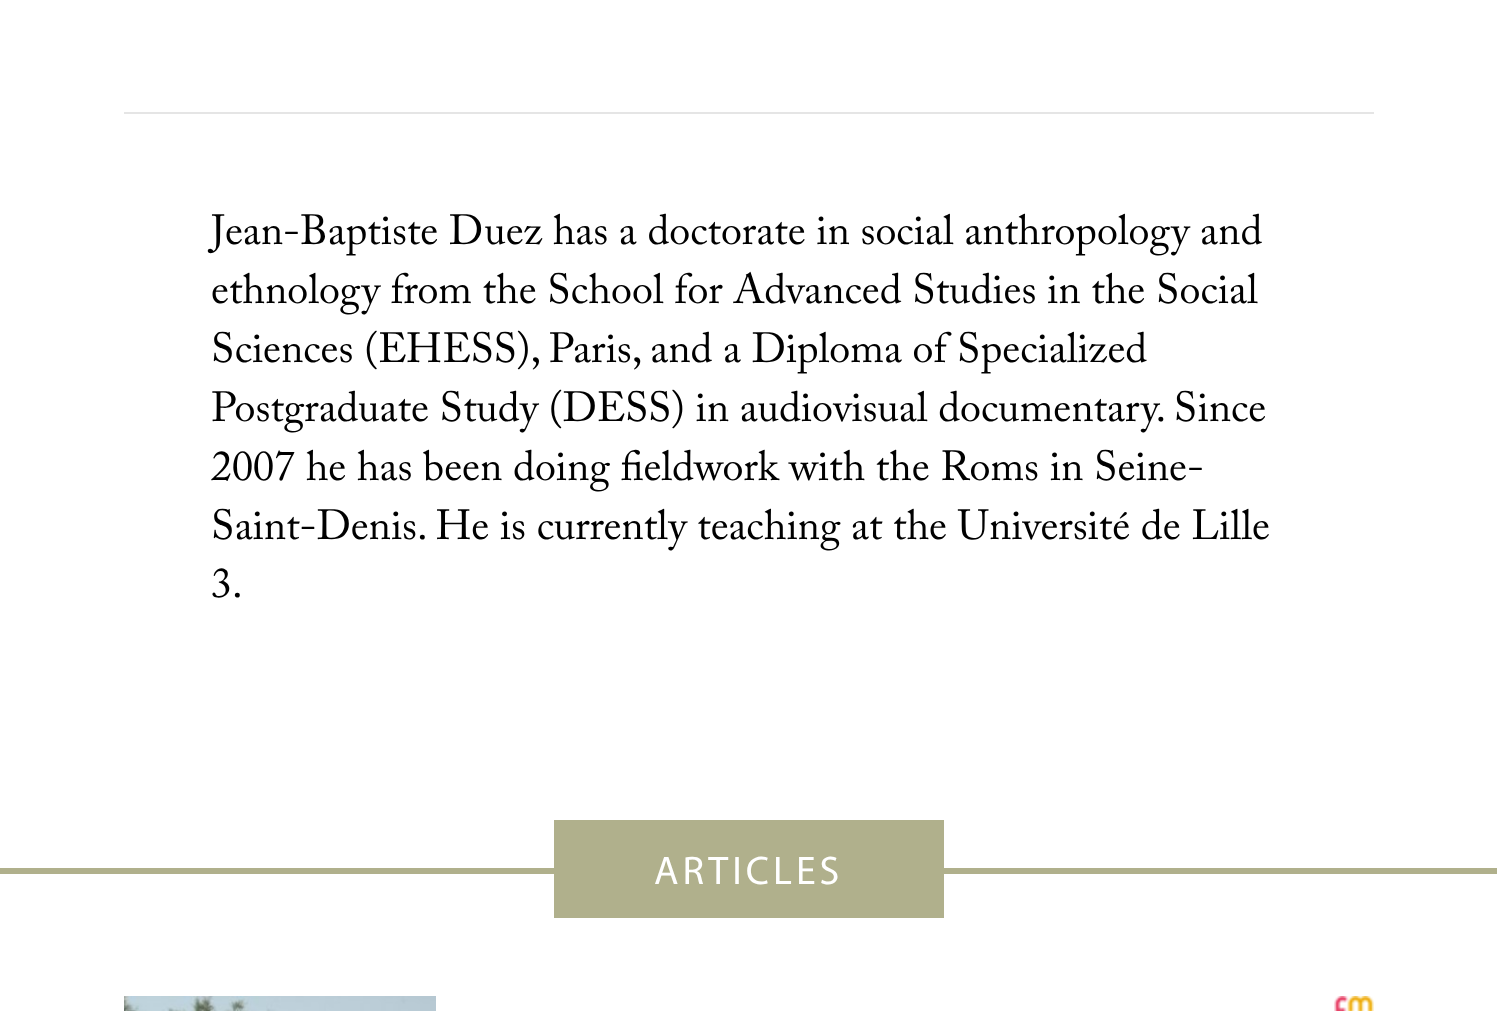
async function draw(canvas) {
	canvas.width = 1497;
	canvas.height = 1011;
	const c = canvas.getContext('2d');
	c.miterLimit = 4;
	c.fontKerning = 'normal';
	async function loadImage(src) {
		const img = new Image();
		img.src = src;
		await img.decode();
		return img;
	}

	c.fillStyle = '#fff';
	c.fillRect(0, 0, 1497, 1011);
	c.fillStyle = '#e5e5e5';
	c.fillRect(124, 112, 1250, 2);
	c.font = '42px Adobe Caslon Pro';
	c.fillStyle = '#000';
	for (const [text, x, y] of [
		['Jean-Baptiste Duez has a doctorate in social anthropology and', 211, 244],
		['ethnology from the School for Advanced Studies in the Social', 211, 303],
		['Sciences (EHESS), Paris, and a Diploma of Specialized', 211, 362],
		['Postgraduate Study (DESS) in audiovisual documentary. Since', 211, 421],
		['2007 he has been doing fieldwork with the Roms in Seine-', 211, 480],
		['Saint-Denis. He is currently teaching at the Université de Lille', 211, 539],
		['3.', 211, 597],
	]) {
		c.fillText(text, x, y);
	}
	c.fillStyle = '#b0b08c';
	c.fillRect(0, 868, 1497, 6);
	c.fillRect(554, 820, 390, 98);
	c.letterSpacing = '4px';
	c.font = '40px Myriad';
	c.fillStyle = '#fff';
	c.fillText('ARTICLES', 654, 884);
	c.drawImage(await loadImage('img1.png'), 124, 996, 312, 15);
	c.drawImage(await loadImage('img2.png'), 1334, 996, 40, 15);
}

draw(document.querySelector('canvas'));
